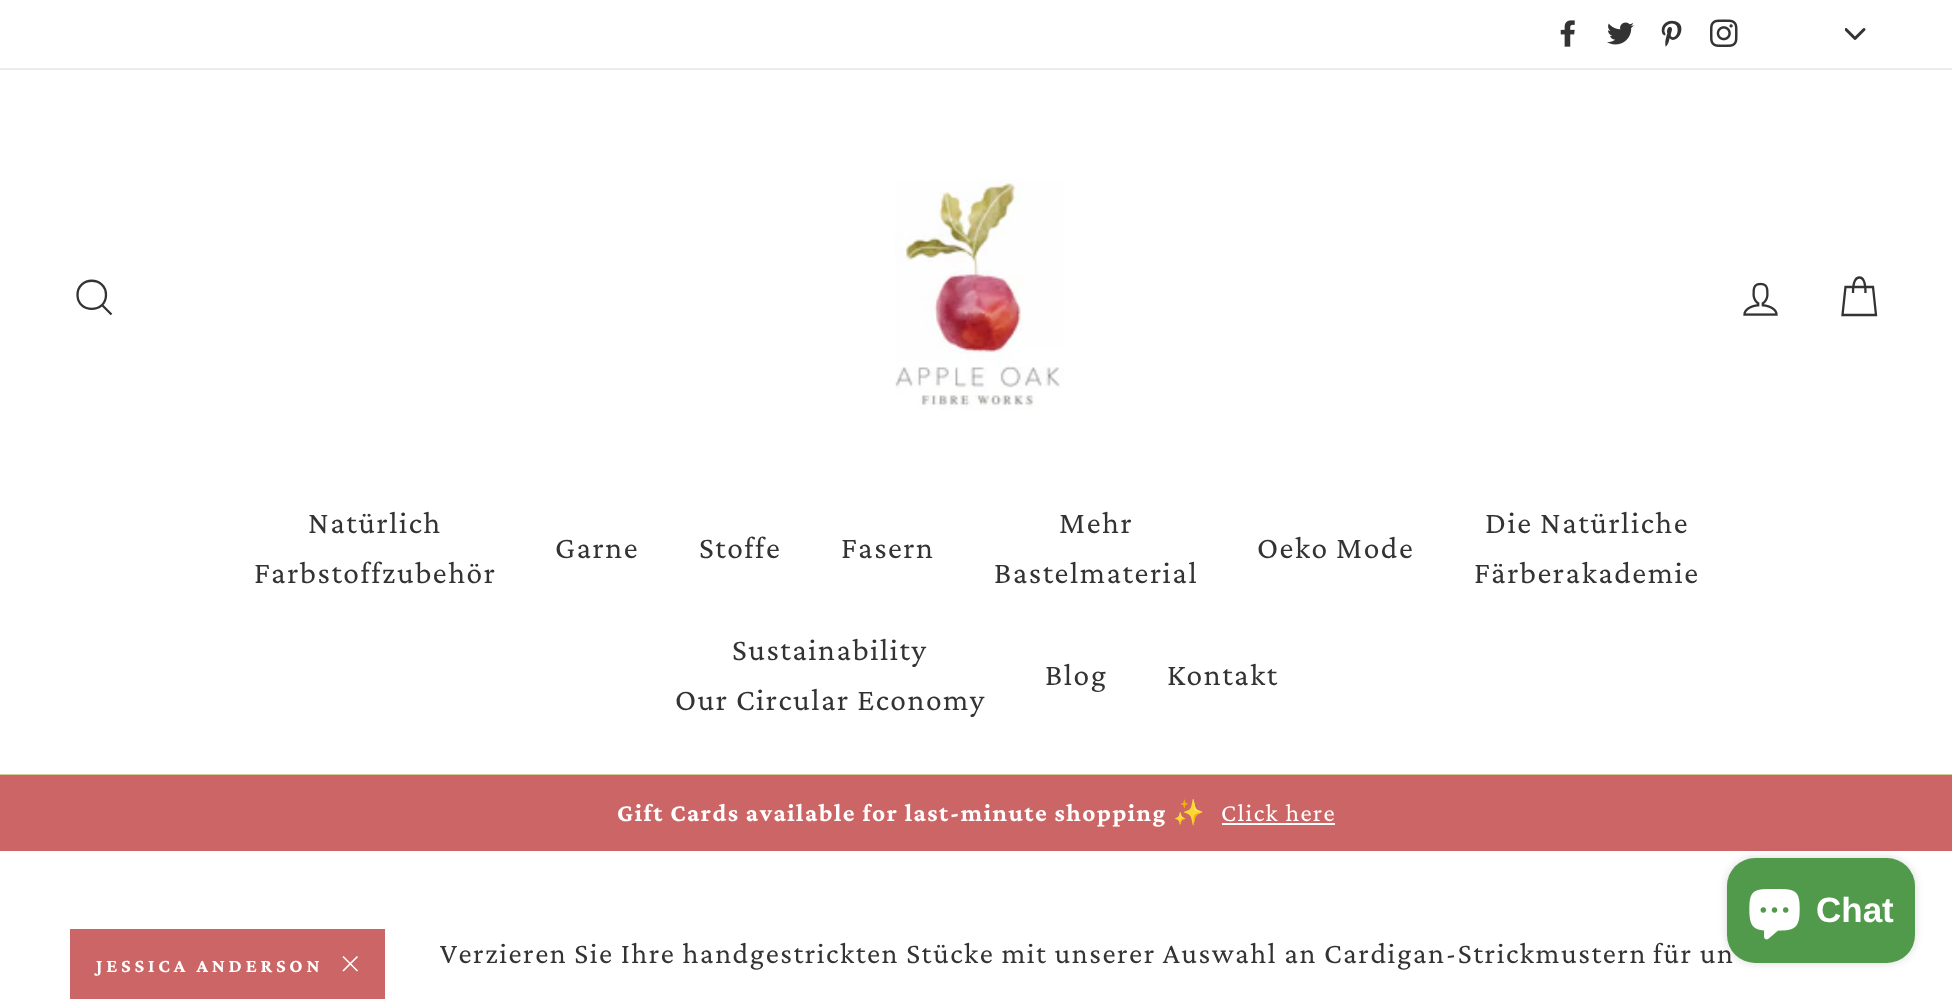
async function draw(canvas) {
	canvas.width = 1952;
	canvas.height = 999;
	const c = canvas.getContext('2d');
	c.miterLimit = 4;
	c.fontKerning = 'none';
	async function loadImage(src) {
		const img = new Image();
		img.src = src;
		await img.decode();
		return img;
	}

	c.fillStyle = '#fff';
	c.fillRect(0, 0, 1952, 999);
	c.drawImage(await loadImage('img1.png'), 1560, 20, 15, 27);
	c.drawImage(await loadImage('img2.png'), 1607, 22, 27, 23);
	c.drawImage(await loadImage('img3.png'), 1661, 20, 21, 27);
	c.drawImage(await loadImage('img4.png'), 1710, 19, 28, 28);
	c.drawImage(await loadImage('img5.png'), 1845, 28, 21, 12);
	c.fillStyle = '#ebebeb';
	c.fillRect(0, 68, 1952, 2);
	c.fillStyle = '#cc9';
	c.fillRect(0, 774, 1952, 1);
	c.beginPath();
	c.moveTo(106, 295);
	c.bezierCurveTo(106, 313.5, 77.5, 313.5, 77.5, 295);
	c.bezierCurveTo(77.5, 276, 106, 276, 106, 295);
	c.closePath();
	c.moveTo(111.5, 314.5);
	c.lineTo(102, 305);
	c.strokeStyle = '#333';
	c.lineWidth = 2.3;
	c.stroke();
	c.drawImage(await loadImage('img6.png'), 895, 179, 169, 231);
	c.drawImage(await loadImage('img7.png'), 1743, 282, 35, 34);
	c.beginPath();
	c.moveTo(1853, 293);
	c.bezierCurveTo(1853, 281, 1856, 277.5, 1859.5, 277.5);
	c.bezierCurveTo(1862.5, 277.5, 1865.5, 281, 1865.5, 293);
	c.moveTo(1845.5, 287);
	c.lineTo(1873, 287);
	c.lineTo(1876, 315);
	c.lineTo(1842.5, 315);
	c.closePath();
	c.stroke();
	c.letterSpacing = '1.5px';
	c.font = '31.5px Crimson Pro';
	c.fillStyle = '#333';
	for (const [text, x, y] of [
		['Natürlich', 308, 533],
		['Farbstoffzubehör', 254, 583],
		['Garne', 555, 558],
		['Stoffe', 699, 558],
		['Fasern', 841, 558],
		['Mehr', 1059, 533],
		['Bastelmaterial', 994, 583],
		['Oeko Mode', 1257, 558],
		['Die Natürliche', 1485, 533],
		['Färberakademie', 1474, 583],
		['Sustainability', 732, 660],
		['Our Circular Economy', 675, 710],
		['Blog', 1045, 685],
		['Kontakt', 1167, 685],
	]) {
		c.fillText(text, x, y);
	}
	c.fillStyle = '#c66';
	c.fillRect(0, 775, 1952, 76);
	c.font = 'bold 25.25px Crimson Pro';
	c.fillStyle = '#fff';
	c.fillText('Gift Cards available for last-minute shopping', 617, 821);
	c.font = 'bold 25.25px Noto Color Emoji';
	c.fillText('✨', 1173, 821);
	c.font = '25.25px Crimson Pro';
	c.fillText('Click here', 1221, 821);
	c.fillRect(1222, 823, 113, 2);
	c.fillStyle = '#c66';
	c.fillRect(70, 929, 315, 70);
	c.letterSpacing = '3.8px';
	c.font = 'bold 19.25px Crimson Pro';
	c.fillStyle = '#fff';
	c.fillText('JESSICA ANDERSON', 96, 972);
	c.beginPath();
	c.moveTo(343, 956.5);
	c.lineTo(357.5, 971);
	c.moveTo(357.5, 956.5);
	c.lineTo(343, 971);
	c.strokeStyle = '#fff';
	c.lineWidth = 1.6;
	c.stroke();
	c.letterSpacing = '1.5px';
	c.font = '29.75px Crimson Pro';
	c.fillStyle = '#333';
	c.fillText('Verzieren Sie Ihre handgestrickten Stücke mit unserer Auswahl an Cardigan-Strickmustern', 440, 963);
	c.fillText('für un', 1653, 963);
	c.fillStyle = '#00000026';
	c.filter = 'blur(4.5px)';
	c.beginPath();
	c.roundRect(1727, 858, 188, 105, 28);
	c.fill();
	c.filter = 'none';
	c.fillStyle = '#529a4b';
	c.beginPath();
	c.roundRect(1727, 858, 188, 105, 28);
	c.fill();
	c.drawImage(await loadImage('img8.png'), 1749, 889, 51, 51);
	c.letterSpacing = '0px';
	c.font = 'bold 35px Liberation Sans';
	c.fillStyle = '#fff';
	c.fillText('Chat', 1816, 922);
}

draw(document.querySelector('canvas'));
